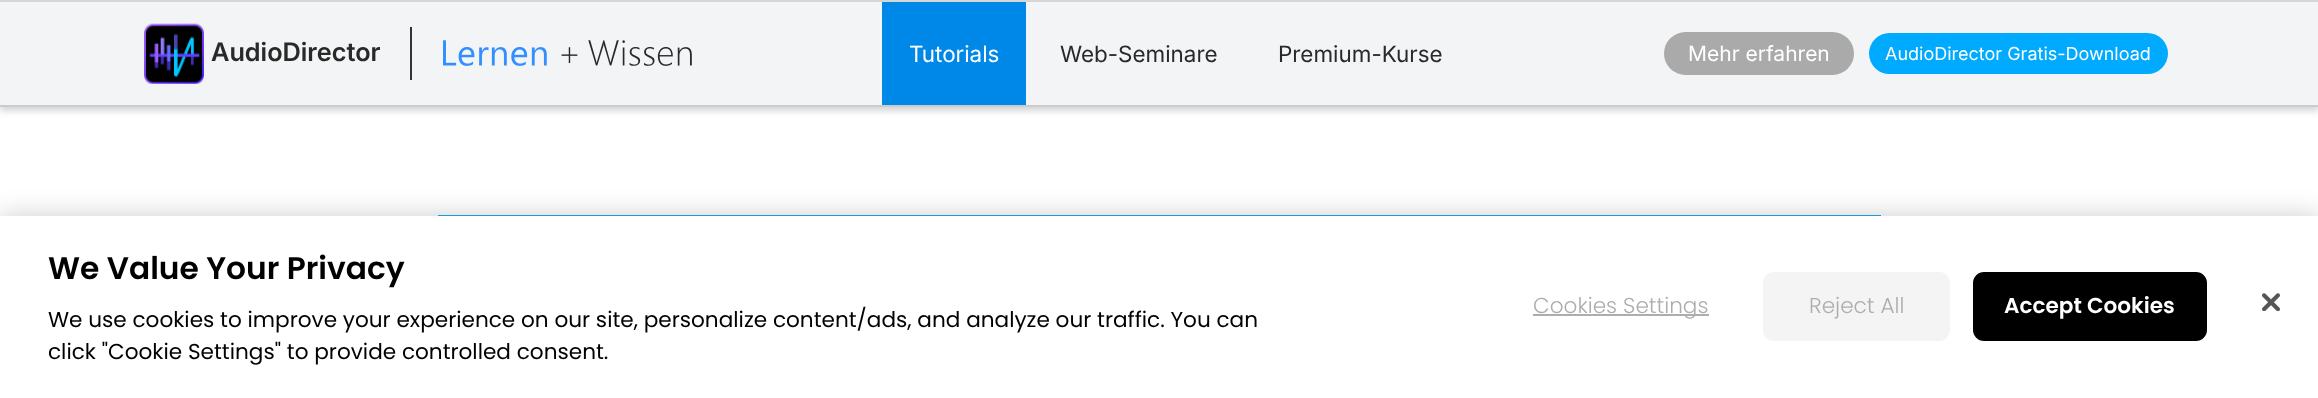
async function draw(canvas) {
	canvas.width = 2318;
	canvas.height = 398;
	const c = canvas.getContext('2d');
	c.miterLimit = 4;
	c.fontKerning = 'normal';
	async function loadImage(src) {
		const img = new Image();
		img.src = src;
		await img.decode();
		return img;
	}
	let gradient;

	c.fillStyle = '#fff';
	c.fillRect(0, 0, 2318, 398);
	c.fillStyle = '#272b3733';
	c.filter = 'blur(3px)';
	c.beginPath();
	c.rect(0, 5, 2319, 106);
	c.fill();
	c.filter = 'none';
	for (const [x, y, w, h, color] of [
		[0, 2, 2318, 103, '#f3f4f5'],
		[0, 0, 2318, 2, '#d6d6d6'],
		[0, 105, 2318, 2, '#ccc'],
	]) {
		c.fillStyle = color;
		c.fillRect(x, y, w, h);
	}
	c.drawImage(await loadImage('img1.png'), 144, 23, 60, 61);
	c.font = '600 25.5px Inter';
	c.fillStyle = '#292929';
	c.fillText('AudioDirector', 211, 61);
	c.fillStyle = '#333';
	c.fillRect(410, 27, 2, 53);
	c.drawImage(await loadImage('img2.png'), 443, 40, 249, 26);
	gradient = c.createLinearGradient(196, 198, 992, -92);
	gradient.addColorStop(0.4, '#f3f4f5');
	gradient.addColorStop(0.5, '#0df');
	gradient.addColorStop(0.8, '#0088e8');
	c.fillStyle = gradient;
	c.fillRect(882, 2, 144, 103);
	c.font = '22.5px Inter';
	c.fillStyle = '#fff';
	c.fillText('Tutorials', 909, 62);
	c.fillStyle = '#292929';
	c.fillText('Web-Seminare', 1060, 62);
	c.fillText('Premium-Kurse', 1278, 62);
	c.fillStyle = '#aaa';
	c.beginPath();
	c.roundRect(1664, 32, 190, 43, 21.5);
	c.fill();
	c.font = '21px "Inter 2"';
	c.fillStyle = '#fff';
	c.fillText('Mehr erfahren', 1688, 61);
	c.fillStyle = '#0af';
	c.beginPath();
	c.roundRect(1869, 33, 299, 41, 20.5);
	c.fill();
	c.font = '18px "Inter 2"';
	c.fillStyle = '#fff';
	c.fillText('AudioDirector Gratis-Download', 1885, 60);
	c.fillStyle = '#1facf3';
	c.fillRect(438, 215, 1443, 1);
	c.fillStyle = '#00000033';
	c.filter = 'blur(13.5px)';
	c.beginPath();
	c.rect(0, 216, 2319, 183);
	c.fill();
	c.filter = 'none';
	c.fillStyle = '#fff';
	c.fillRect(0, 216, 2318, 182);
	c.font = '600 31.25px Poppins';
	c.fillStyle = '#000';
	c.fillText('We Value Your Privacy', 48, 279);
	c.font = '21.6px Poppins';
	c.fillText('We use cookies to improve your experience on our site, personalize content/ads, and analyze our traffic. You can', 48, 327);
	c.fillText('click "Cookie Settings" to provide controlled consent.', 48, 359);
	c.fillStyle = '#adadad';
	c.fillRect(1533, 314, 176, 2);
	c.font = '300 21.6px Poppins';
	c.fillText('Cookies Settings', 1533, 313);
	c.fillStyle = '#f4f4f4';
	c.beginPath();
	c.roundRect(1763, 272, 187, 69, 11);
	c.fill();
	c.fillStyle = '#adadad';
	c.fillText('Reject All', 1809, 313);
	c.fillStyle = '#000';
	c.beginPath();
	c.roundRect(1974, 273, 232, 67, 10);
	c.fill();
	c.strokeStyle = '#000';
	c.lineWidth = 2;
	c.stroke();
	c.font = '600 21.6px Poppins';
	c.fillStyle = '#fff';
	c.fillText('Accept Cookies', 2004, 313);
	c.drawImage(await loadImage('img3.png'), 2262, 293, 18, 18);
}

draw(document.querySelector('canvas'));
